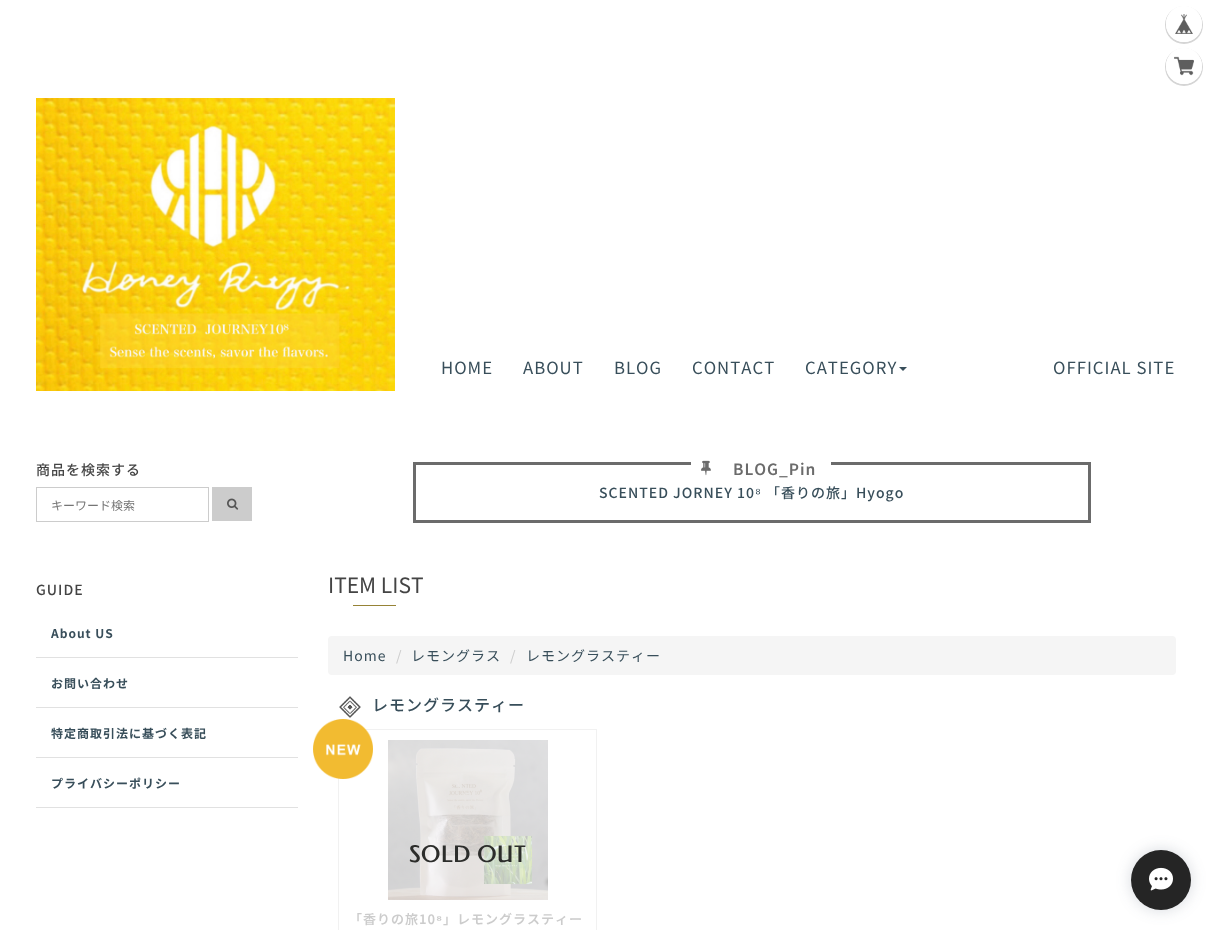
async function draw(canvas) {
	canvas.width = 1211;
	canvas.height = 930;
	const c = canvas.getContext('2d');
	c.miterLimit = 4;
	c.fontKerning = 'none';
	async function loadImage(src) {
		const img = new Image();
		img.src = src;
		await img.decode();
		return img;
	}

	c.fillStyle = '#fff';
	c.fillRect(0, 0, 1211, 930);
	c.fillStyle = '#d5d5d5';
	c.beginPath();
	c.moveTo(1184, 6);
	c.bezierCurveTo(1173.5, 6, 1165, 14.5, 1165, 25);
	c.bezierCurveTo(1165, 35.5, 1173.5, 44, 1184, 44);
	c.bezierCurveTo(1194.5, 44, 1203, 35.5, 1203, 25);
	c.bezierCurveTo(1203, 14.5, 1194.5, 6, 1184, 6);
	c.bezierCurveTo(1194, 6, 1202, 14, 1202, 24);
	c.bezierCurveTo(1202, 34, 1194, 42, 1184, 42);
	c.bezierCurveTo(1174, 42, 1166, 34, 1166, 24);
	c.bezierCurveTo(1166, 14, 1174, 6, 1184, 6);
	c.closePath();
	c.fill();
	c.fillStyle = '#fff';
	c.beginPath();
	c.arc(1184, 24, 18, 0, 2 * Math.PI);
	c.fill();
	c.drawImage(await loadImage('img1.png'), 1175, 14, 18, 20);
	c.fillStyle = '#d5d5d5';
	c.beginPath();
	c.moveTo(1184, 48);
	c.bezierCurveTo(1173.5, 48, 1165, 56.5, 1165, 67);
	c.bezierCurveTo(1165, 77.5, 1173.5, 86, 1184, 86);
	c.bezierCurveTo(1194.5, 86, 1203, 77.5, 1203, 67);
	c.bezierCurveTo(1203, 56.5, 1194.5, 48, 1184, 48);
	c.bezierCurveTo(1194, 48, 1202, 56, 1202, 66);
	c.bezierCurveTo(1202, 76, 1194, 84, 1184, 84);
	c.bezierCurveTo(1174, 84, 1166, 76, 1166, 66);
	c.bezierCurveTo(1166, 56, 1174, 48, 1184, 48);
	c.closePath();
	c.fill();
	c.fillStyle = '#fff';
	c.beginPath();
	c.arc(1184, 66, 18, 0, 2 * Math.PI);
	c.fill();
	c.drawImage(await loadImage('img2.png'), 1174, 56, 20, 20);
	c.drawImage(await loadImage('img3.png'), 36, 98, 359, 293);
	c.letterSpacing = '1px';
	c.font = '16.75px Noto Sans JP';
	c.fillStyle = '#384e5a';
	for (const [text, x, y] of [
		['HOME', 441, 374],
		['ABOUT', 523, 374],
		['BLOG', 614, 374],
		['CONTACT', 692, 374],
		['CATEGORY', 805, 374],
	]) {
		c.fillText(text, x, y);
	}
	c.beginPath();
	c.moveTo(899, 367);
	c.lineTo(907, 367);
	c.lineTo(903, 371);
	c.closePath();
	c.fill();
	c.fillText('OFFICIAL SITE', 1053, 374);
	c.font = '500 14px Noto Sans JP';
	c.fillStyle = '#444';
	c.fillText('商品を検索する', 36, 475);
	c.strokeStyle = '#ccc';
	c.strokeRect(36.5, 487.5, 172, 34);
	c.letterSpacing = '0px';
	c.font = '12px Noto Sans JP';
	c.fillStyle = '#757575';
	c.fillText('キーワード検索', 51, 510);
	c.fillStyle = '#ccc';
	c.fillRect(212, 487, 40, 34);
	c.drawImage(await loadImage('img4.png'), 227, 498, 12, 12);
	c.letterSpacing = '1px';
	c.font = '500 14px Noto Sans JP';
	c.fillStyle = '#444';
	c.fillText('GUIDE', 36, 595);
	c.fillStyle = '#e1e1e1';
	c.fillRect(36, 657, 262, 1);
	c.font = 'bold 12px Noto Sans JP';
	c.fillStyle = '#384e5a';
	c.fillText('About US', 51, 638);
	c.fillStyle = '#e1e1e1';
	c.fillRect(36, 707, 262, 1);
	c.fillStyle = '#384e5a';
	c.fillText('お問い合わせ', 51, 688);
	c.fillStyle = '#e1e1e1';
	c.fillRect(36, 757, 262, 1);
	c.fillStyle = '#384e5a';
	c.fillText('特定商取引法に基づく表記', 51, 738);
	c.fillStyle = '#e1e1e1';
	c.fillRect(36, 807, 262, 1);
	c.fillStyle = '#384e5a';
	c.fillText('プライバシーポリシー', 51, 788);
	c.strokeStyle = '#6b6b6b';
	c.lineWidth = 3;
	c.strokeRect(414.5, 463.5, 675, 58);
	c.fillStyle = '#fff';
	c.fillRect(691, 462, 140, 3);
	c.drawImage(await loadImage('img5.png'), 701, 460, 10, 16);
	c.font = '600 15.5px Noto Sans JP';
	c.fillStyle = '#6b6b6b';
	c.fillText('BLOG_Pin', 733, 475);
	c.font = '500 14px Noto Sans JP';
	c.fillStyle = '#384e5a';
	c.fillText('SCENTED JORNEY 10', 599, 498);
	c.font = '14px Liberation Sans';
	c.fillText('⁸', 755, 498);
	c.font = '500 14px Noto Sans JP';
	c.fillText('「香りの旅」Hyogo', 766, 498);
	c.letterSpacing = '0px';
	c.font = '21px Noto Sans JP';
	c.fillStyle = '#444';
	c.fillText('ITEM LIST', 328, 593);
	c.fillStyle = '#968336';
	c.fillRect(353, 605, 43, 1);
	c.fillStyle = '#f5f5f5';
	c.beginPath();
	c.roundRect(328, 636, 848, 39, 4);
	c.fill();
	c.letterSpacing = '1px';
	c.font = '14px Noto Sans JP';
	c.fillStyle = '#384e5a';
	c.fillText('Home', 343, 661);
	c.fillStyle = '#ccc';
	c.fillText('/', 396, 661);
	c.fillStyle = '#384e5a';
	c.fillText('レモングラス', 411, 661);
	c.fillStyle = '#ccc';
	c.fillText('/', 510, 661);
	c.fillStyle = '#384e5a';
	c.fillText('レモングラスティー', 526, 661);
	c.drawImage(await loadImage('img6.png'), 339, 696, 22, 22);
	c.font = '500 16px Noto Sans JP';
	c.fillText('レモングラスティー', 372, 711);
	c.strokeStyle = '#f1f1f1';
	c.lineWidth = 1;
	c.strokeRect(338.5, 729.5, 258, 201);
	c.drawImage(await loadImage('img7.png'), 313, 719, 60, 60);
	c.drawImage(await loadImage('img8.png'), 388, 740, 160, 160);
	c.font = 'bold 22px Federo';
	c.fillStyle = '#2c2d2b';
	c.fillText('SOLD OUT', 409, 862);
	c.font = '600 13px Noto Sans JP';
	c.fillStyle = '#ccc';
	c.fillText('「香りの旅10', 349, 924);
	c.font = 'bold 13px Liberation Sans';
	c.fillText('⁸', 436, 924);
	c.font = '600 13px Noto Sans JP';
	c.fillText('」レモングラスティー', 443, 924);
	c.fillStyle = '#33425833';
	c.filter = 'blur(7.5px)';
	c.beginPath();
	c.roundRect(1131, 850, 60, 60, 30);
	c.fill();
	c.filter = 'none';
	c.fillStyle = '#252525';
	c.beginPath();
	c.arc(1161, 880, 30, 0, 2 * Math.PI);
	c.fill();
	c.drawImage(await loadImage('img9.png'), 1149, 867, 24, 24);
}

draw(document.querySelector('canvas'));
